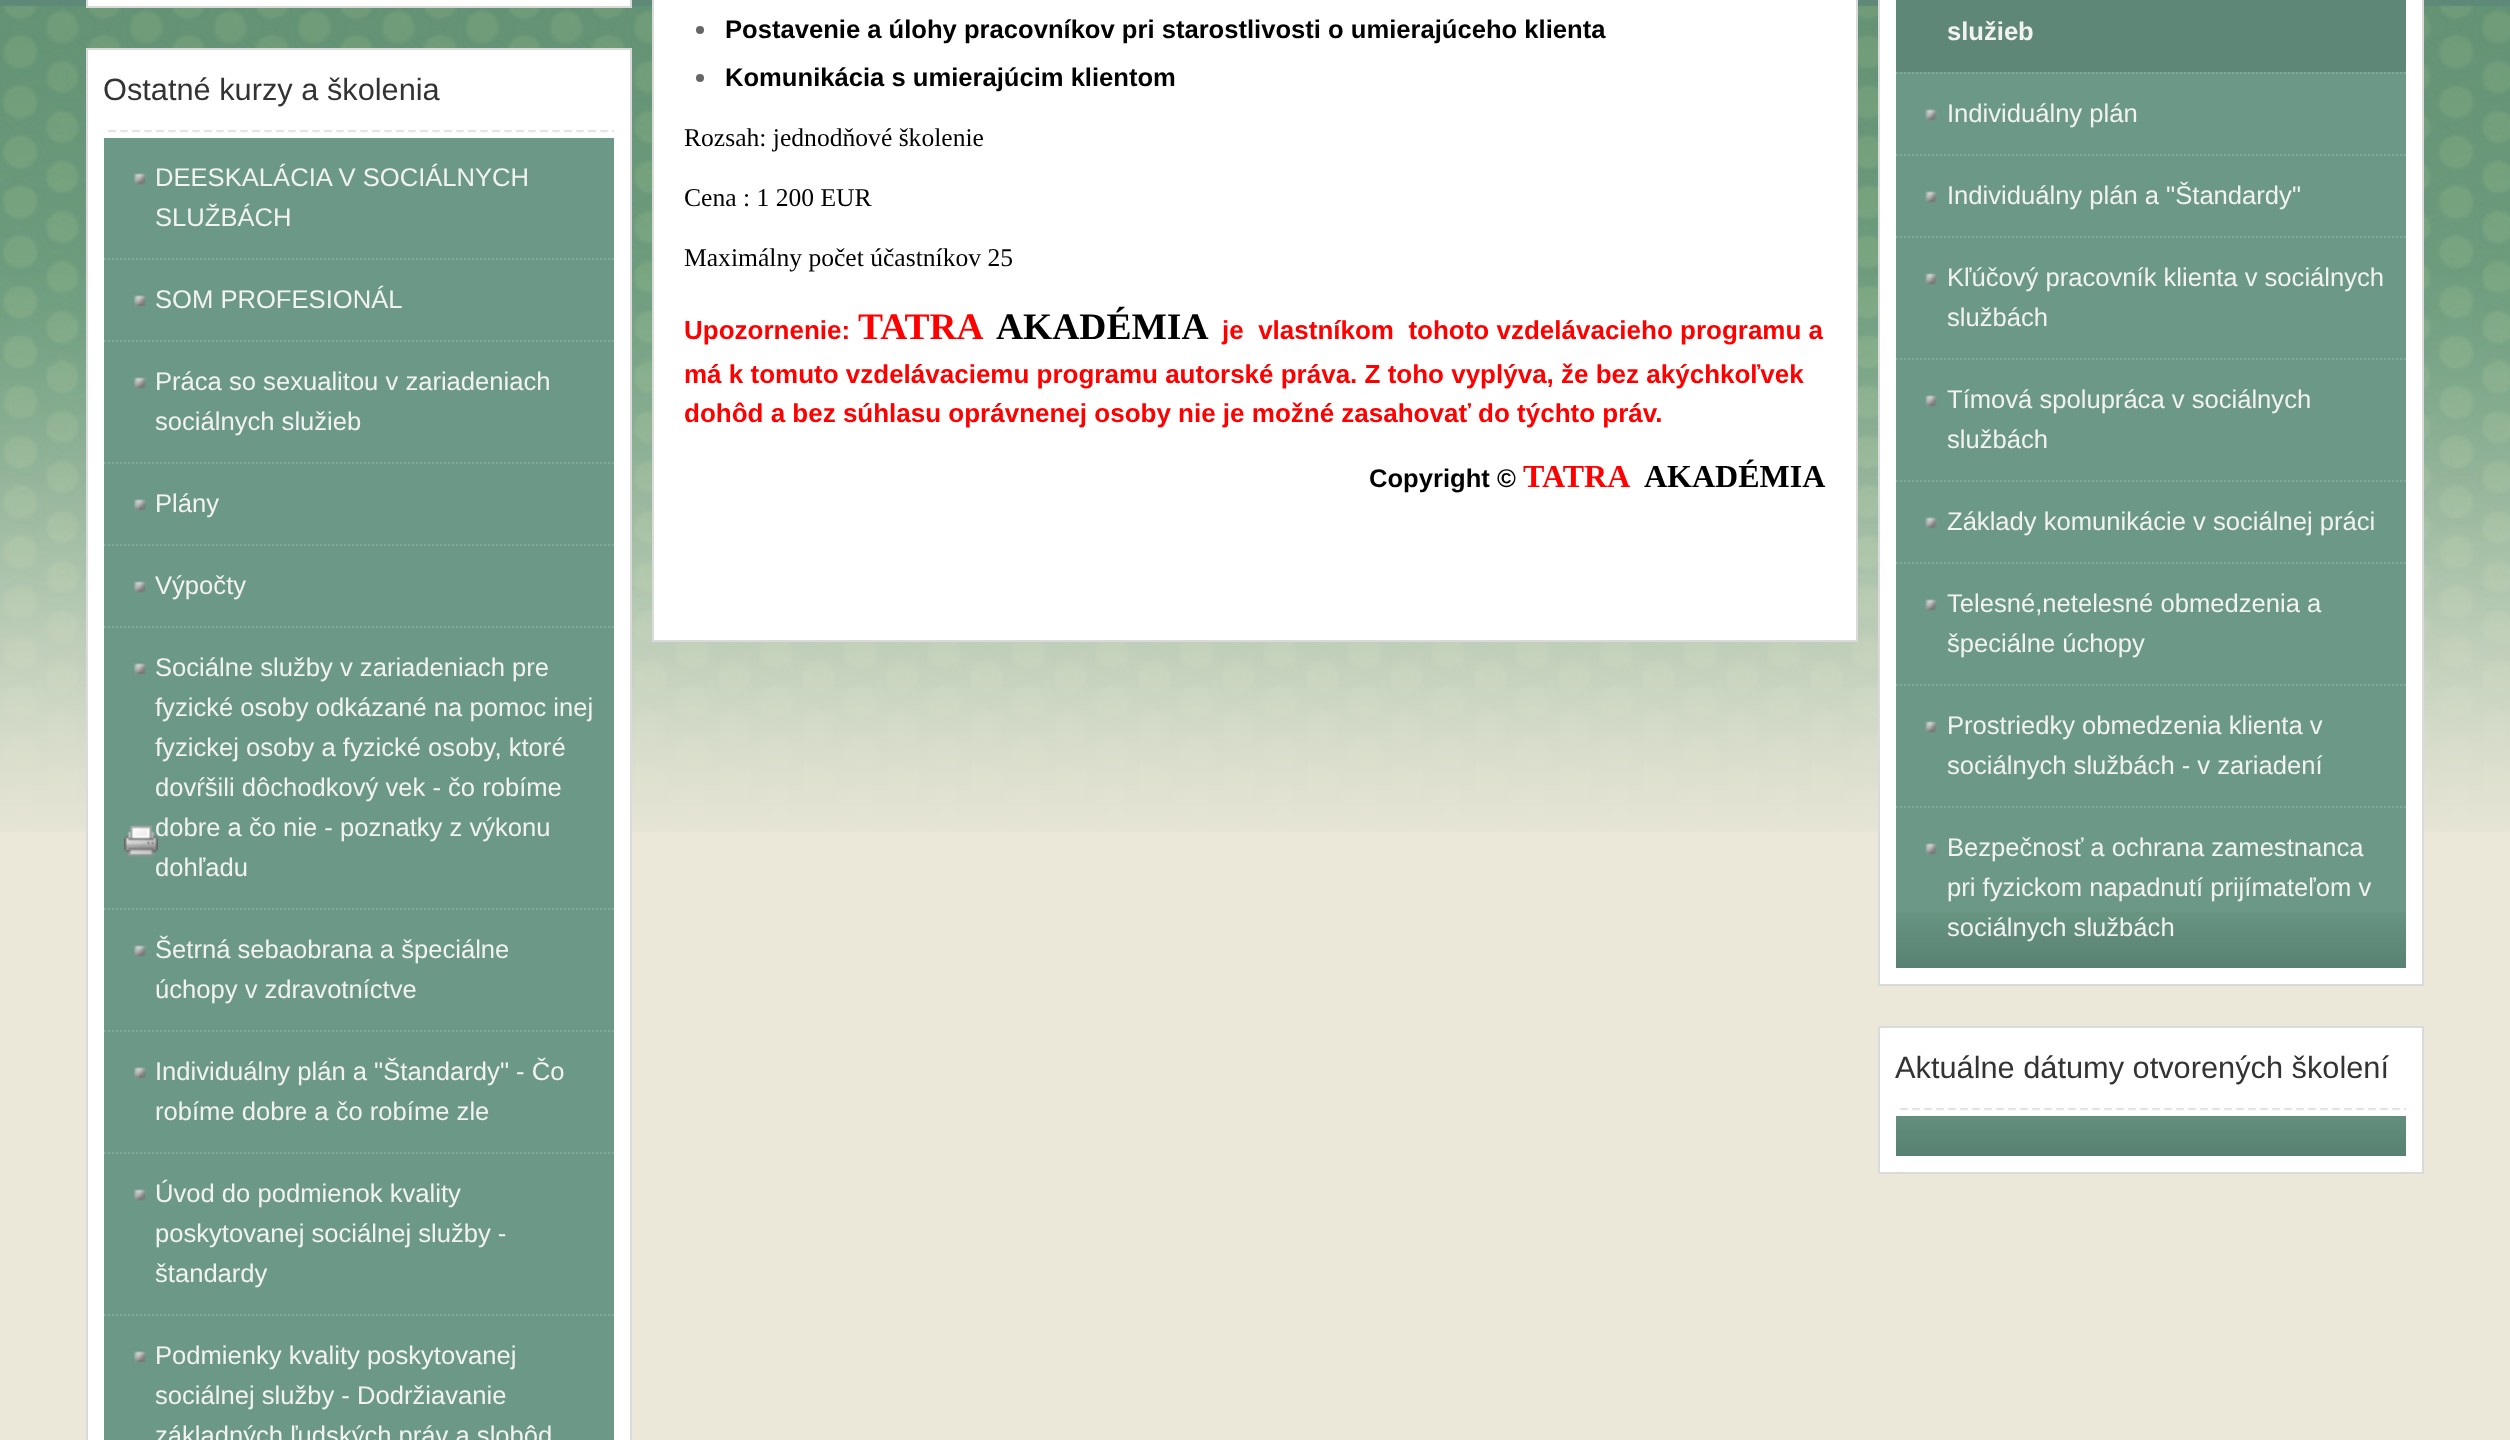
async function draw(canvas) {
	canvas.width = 2510;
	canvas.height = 1440;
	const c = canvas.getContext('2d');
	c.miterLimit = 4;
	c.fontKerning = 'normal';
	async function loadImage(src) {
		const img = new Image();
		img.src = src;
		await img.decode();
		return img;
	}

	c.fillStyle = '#ebe8d9';
	c.fillRect(0, 0, 2510, 1440);
	c.drawImage(await loadImage('img1.png'), 0, 0, 2510, 832);
	c.fillStyle = '#fff';
	c.beginPath();
	c.rect(87, -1, 544, 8);
	c.fill();
	c.strokeStyle = '#dadada';
	c.lineWidth = 2;
	c.stroke();
	c.beginPath();
	c.rect(87, 49, 544, 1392);
	c.fill();
	c.stroke();
	c.fillStyle = '#6c9987';
	c.fillRect(104, 138, 510, 1302);
	c.drawImage(await loadImage('img2.png'), 104, 130, 510, 3);
	c.font = '30.75px Liberation Sans';
	c.fillStyle = '#333';
	c.fillText('Ostatné kurzy a školenia', 103, 100);
	c.beginPath();
	c.moveTo(104, 259);
	c.lineTo(614, 259);
	c.strokeStyle = '#82a899';
	c.setLineDash([2, 2]);
	c.stroke();
	c.drawImage(await loadImage('img3.png'), 134, 173, 12, 12);
	c.font = '25.6px Liberation Sans';
	c.fillStyle = '#f2f2f2';
	c.fillText('DEESKALÁCIA V SOCIÁLNYCH', 155, 186);
	c.fillText('SLUŽBÁCH', 155, 226);
	c.beginPath();
	c.moveTo(104, 341);
	c.lineTo(614, 341);
	c.stroke();
	c.drawImage(await loadImage('img3.png'), 134, 295, 12, 12);
	c.fillText('SOM PROFESIONÁL', 155, 308);
	c.beginPath();
	c.moveTo(104, 463);
	c.lineTo(614, 463);
	c.stroke();
	c.drawImage(await loadImage('img3.png'), 134, 377, 12, 12);
	c.fillText('Práca so sexualitou v zariadeniach', 155, 390);
	c.fillText('sociálnych služieb', 155, 430);
	c.beginPath();
	c.moveTo(104, 545);
	c.lineTo(614, 545);
	c.stroke();
	c.drawImage(await loadImage('img3.png'), 134, 499, 12, 12);
	c.fillText('Plány', 155, 512);
	c.beginPath();
	c.moveTo(104, 627);
	c.lineTo(614, 627);
	c.stroke();
	c.drawImage(await loadImage('img3.png'), 134, 581, 12, 12);
	c.fillText('Výpočty', 155, 594);
	c.beginPath();
	c.moveTo(104, 909);
	c.lineTo(614, 909);
	c.stroke();
	c.drawImage(await loadImage('img4.png'), 124, 663, 34, 194);
	for (const [text, x, y] of [
		['Sociálne služby v zariadeniach pre', 155, 676],
		['fyzické osoby odkázané na pomoc inej', 155, 716],
		['fyzickej osoby a fyzické osoby, ktoré', 155, 756],
		['dovŕšili dôchodkový vek - čo robíme', 155, 796],
		['dobre a čo nie - poznatky z výkonu', 155, 836],
		['dohľadu', 155, 876],
	]) {
		c.fillText(text, x, y);
	}
	c.beginPath();
	c.moveTo(104, 1031);
	c.lineTo(614, 1031);
	c.stroke();
	c.drawImage(await loadImage('img3.png'), 134, 945, 12, 12);
	c.fillText('Šetrná sebaobrana a špeciálne', 155, 958);
	c.fillText('úchopy v zdravotníctve', 155, 998);
	c.beginPath();
	c.moveTo(104, 1153);
	c.lineTo(614, 1153);
	c.stroke();
	c.drawImage(await loadImage('img3.png'), 134, 1067, 12, 12);
	c.fillText('Individuálny plán a "Štandardy" - Čo', 155, 1080);
	c.fillText('robíme dobre a čo robíme zle', 155, 1120);
	c.beginPath();
	c.moveTo(104, 1315);
	c.lineTo(614, 1315);
	c.stroke();
	c.drawImage(await loadImage('img3.png'), 134, 1189, 12, 12);
	for (const [text, x, y] of [
		['Úvod do podmienok kvality', 155, 1202],
		['poskytovanej sociálnej služby -', 155, 1242],
		['štandardy', 155, 1282],
	]) {
		c.fillText(text, x, y);
	}
	c.drawImage(await loadImage('img3.png'), 134, 1351, 12, 12);
	for (const [text, x, y] of [
		['Podmienky kvality poskytovanej', 155, 1364],
		['sociálnej služby - Dodržiavanie', 155, 1404],
		['základných ľudských práv a slobôd', 155, 1444],
	]) {
		c.fillText(text, x, y);
	}
	c.fillStyle = '#fff';
	c.beginPath();
	c.rect(653, -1, 1204, 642);
	c.fill();
	c.strokeStyle = '#dadada';
	c.setLineDash([]);
	c.stroke();
	c.fillStyle = '#666';
	c.beginPath();
	c.arc(700, 30, 4, 0, 2 * Math.PI);
	c.fill();
	c.font = 'bold 25.6px Liberation Sans';
	c.fillStyle = '#000';
	c.fillText('Postavenie a úlohy pracovníkov pri starostlivosti o umierajúceho klienta', 725, 38);
	c.fillStyle = '#666';
	c.beginPath();
	c.arc(700, 78, 4, 0, 2 * Math.PI);
	c.fill();
	c.fillStyle = '#000';
	c.fillText('Komunikácia s umierajúcim klientom', 725, 86);
	c.font = '25.6px Liberation Serif';
	for (const [text, x, y] of [
		['Rozsah: jednodňové školenie', 684, 146],
		['Cena : 1 200 EUR', 684, 206],
		['Maximálny počet účastníkov 25', 684, 266],
	]) {
		c.fillText(text, x, y);
	}
	c.font = 'bold 26px Liberation Sans';
	c.fillStyle = '#f00';
	c.fillText('Upozornenie:', 684, 339);
	c.font = 'bold 37.5px Liberation Serif';
	c.fillText('TATRA', 858, 339);
	c.fillStyle = '#000';
	c.fillText('AKADÉMIA', 996, 339);
	c.font = 'bold 26px Liberation Sans';
	c.fillStyle = '#f00';
	for (const [text, x, y] of [
		['je  vlastníkom  tohoto vzdelávacieho programu a', 1222, 339],
		['má k tomuto vzdelávaciemu programu autorské práva. Z toho vyplýva, že bez akýchkoľvek', 684, 383],
		['dohôd a bez súhlasu oprávnenej osoby nie je možné zasahovať do týchto práv.', 684, 422],
	]) {
		c.fillText(text, x, y);
	}
	c.font = 'bold 25.6px Liberation Sans';
	c.fillStyle = '#000';
	c.fillText('Copyright ©', 1369, 487);
	c.font = 'bold 32px Liberation Serif';
	c.fillStyle = '#f00';
	c.fillText('TATRA', 1523, 487);
	c.fillStyle = '#000';
	c.fillText('AKADÉMIA', 1644, 487);
	c.fillStyle = '#fff';
	c.beginPath();
	c.rect(1879, -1, 544, 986);
	c.fill();
	c.stroke();
	c.fillStyle = '#6c9987';
	c.fillRect(1896, 72, 510, 840);
	c.drawImage(await loadImage('img5.png'), 1896, 912, 510, 56);
	c.beginPath();
	c.moveTo(1896, 73);
	c.lineTo(2406, 73);
	c.strokeStyle = '#82a899';
	c.setLineDash([2, 2]);
	c.stroke();
	c.fillStyle = '#5f8777';
	c.fillRect(1896, 0, 510, 72);
	c.font = 'bold 25.6px Liberation Sans';
	c.fillStyle = '#f2f2f2';
	c.fillText('služieb', 1947, 40);
	c.beginPath();
	c.moveTo(1896, 155);
	c.lineTo(2406, 155);
	c.stroke();
	c.drawImage(await loadImage('img6.png'), 1925, 109, 12, 12);
	c.font = '25.6px Liberation Sans';
	c.fillText('Individuálny plán', 1947, 122);
	c.beginPath();
	c.moveTo(1896, 237);
	c.lineTo(2406, 237);
	c.stroke();
	c.drawImage(await loadImage('img6.png'), 1925, 191, 12, 12);
	c.fillText('Individuálny plán a "Štandardy"', 1947, 204);
	c.beginPath();
	c.moveTo(1896, 359);
	c.lineTo(2406, 359);
	c.stroke();
	c.drawImage(await loadImage('img6.png'), 1925, 273, 12, 12);
	c.fillText('Kľúčový pracovník klienta v sociálnych', 1947, 286);
	c.fillText('službách', 1947, 326);
	c.beginPath();
	c.moveTo(1896, 481);
	c.lineTo(2406, 481);
	c.stroke();
	c.drawImage(await loadImage('img6.png'), 1925, 395, 12, 12);
	c.fillText('Tímová spolupráca v sociálnych', 1947, 408);
	c.fillText('službách', 1947, 448);
	c.beginPath();
	c.moveTo(1896, 563);
	c.lineTo(2406, 563);
	c.stroke();
	c.drawImage(await loadImage('img6.png'), 1925, 517, 12, 12);
	c.fillText('Základy komunikácie v sociálnej práci', 1947, 530);
	c.beginPath();
	c.moveTo(1896, 685);
	c.lineTo(2406, 685);
	c.stroke();
	c.drawImage(await loadImage('img6.png'), 1925, 599, 12, 12);
	c.fillText('Telesné,netelesné obmedzenia a', 1947, 612);
	c.fillText('špeciálne úchopy', 1947, 652);
	c.beginPath();
	c.moveTo(1896, 807);
	c.lineTo(2406, 807);
	c.stroke();
	c.drawImage(await loadImage('img6.png'), 1925, 721, 12, 12);
	c.fillText('Prostriedky obmedzenia klienta v', 1947, 734);
	c.fillText('sociálnych službách - v zariadení', 1947, 774);
	c.drawImage(await loadImage('img6.png'), 1925, 843, 12, 12);
	for (const [text, x, y] of [
		['Bezpečnosť a ochrana zamestnanca', 1947, 856],
		['pri fyzickom napadnutí prijímateľom v', 1947, 896],
		['sociálnych službách', 1947, 936],
	]) {
		c.fillText(text, x, y);
	}
	c.fillStyle = '#fff';
	c.beginPath();
	c.rect(1879, 1027, 544, 146);
	c.fill();
	c.strokeStyle = '#dadada';
	c.setLineDash([]);
	c.stroke();
	c.drawImage(await loadImage('img7.png'), 1896, 1116, 510, 40);
	c.drawImage(await loadImage('img2.png'), 1896, 1108, 510, 3);
	c.font = '30.75px Liberation Sans';
	c.fillStyle = '#333';
	c.fillText('Aktuálne dátumy otvorených školení', 1895, 1078);
}

draw(document.querySelector('canvas'));
